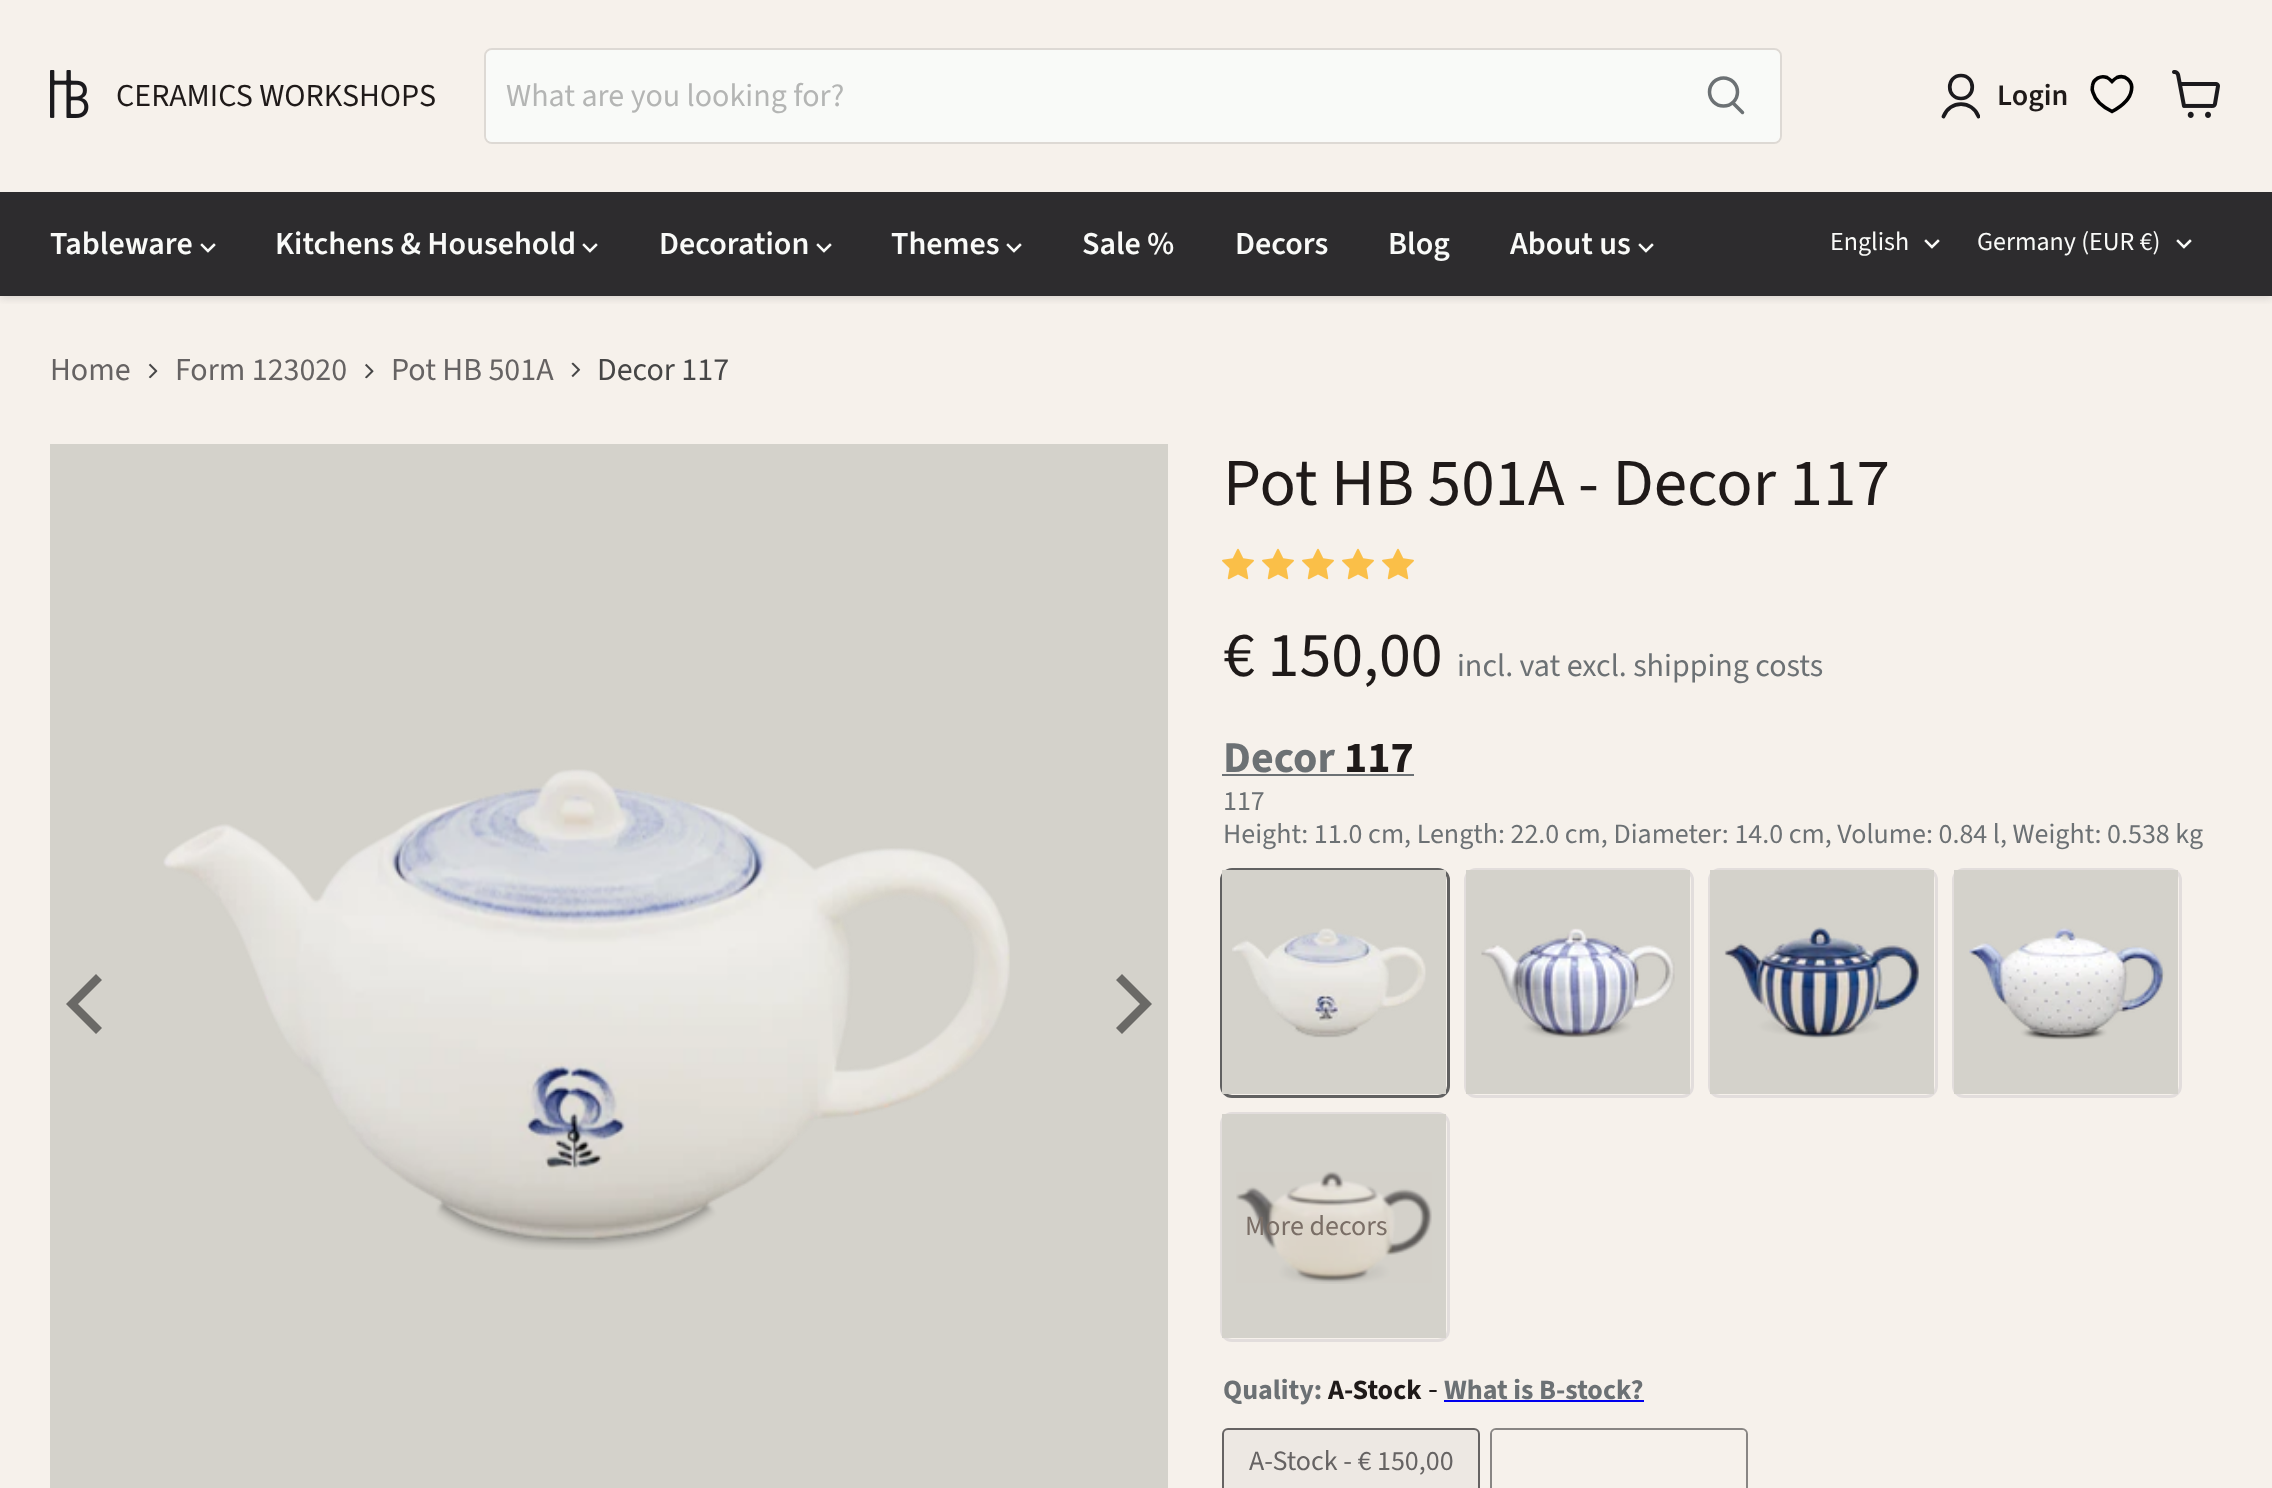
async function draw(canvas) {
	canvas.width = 2272;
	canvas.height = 1488;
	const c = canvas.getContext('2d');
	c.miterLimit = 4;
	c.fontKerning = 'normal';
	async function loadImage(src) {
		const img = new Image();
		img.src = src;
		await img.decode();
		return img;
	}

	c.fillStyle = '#f6f1eb';
	c.fillRect(0, 0, 2272, 1488);
	c.save();
	c.beginPath();
	c.rect(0, 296, 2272, 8);
	c.clip();
	c.fillStyle = '#7b797640';
	c.filter = 'blur(4px)';
	c.beginPath();
	c.rect(0, 2, 2272, 296);
	c.fill();
	c.filter = 'none';
	c.restore();
	c.drawImage(await loadImage('img1.png'), 50, 70, 39, 48);
	c.font = '32px Source Sans Pro';
	c.fillStyle = '#1f1a19';
	c.fillText('CERAMICS WORKSHOPS', 116, 106);
	c.beginPath();
	c.roundRect(485, 49, 1296, 94, 7);
	c.strokeStyle = '#ddd9d4';
	c.lineWidth = 2;
	c.stroke();
	c.fillStyle = '#f9faf8';
	c.beginPath();
	c.roundRect(486, 50, 1186, 92, [6, 0, 0, 6]);
	c.fill();
	c.fillStyle = '#b4b5b4';
	c.fillText('What are you looking for?', 506, 106);
	c.fillStyle = '#f9faf8';
	c.beginPath();
	c.roundRect(1673, 51, 106, 90, [0, 5, 5, 0]);
	c.fill();
	c.strokeStyle = '#f9faf8';
	c.stroke();
	c.beginPath();
	c.moveTo(1742.5, 112.5);
	c.lineTo(1733, 103);
	c.strokeStyle = '#6c7174';
	c.lineWidth = 3.5;
	c.lineCap = 'round';
	c.stroke();
	c.beginPath();
	c.arc(1723.5, 92, 14, 0, 2 * Math.PI);
	c.stroke();
	c.beginPath();
	c.moveTo(1961, 98.5);
	c.bezierCurveTo(1976, 98.5, 1976, 75.5, 1961, 75.5);
	c.bezierCurveTo(1946, 75.5, 1946, 98.5, 1961, 98.5);
	c.closePath();
	c.strokeStyle = '#1b1a1d';
	c.lineWidth = 3.7;
	c.lineJoin = 'round';
	c.stroke();
	c.save();
	c.beginPath();
	c.rect(1940, 72, 40, 48);
	c.clip();
	c.beginPath();
	c.moveTo(1978.5, 116.5);
	c.bezierCurveTo(1972.5, 100, 1949.5, 100, 1943.5, 116.5);
	c.stroke();
	c.restore();
	c.font = '600 30px Source Sans Pro';
	c.fillStyle = '#1f1a19';
	c.fillText('Login', 1997, 105);
	c.beginPath();
	c.moveTo(2112, 111.5);
	c.bezierCurveTo(2104, 107.5, 2095.5, 101.5, 2093, 92.5);
	c.bezierCurveTo(2092, 90.5, 2092, 88, 2092.5, 85.5);
	c.bezierCurveTo(2093.5, 79, 2100.5, 75, 2107, 77.5);
	c.bezierCurveTo(2109, 78.5, 2110.5, 80, 2112, 81.5);
	c.bezierCurveTo(2113.5, 80, 2115, 78.5, 2117, 77.5);
	c.bezierCurveTo(2125.5, 74, 2133, 82, 2131.5, 90);
	c.bezierCurveTo(2130, 100, 2120.5, 107, 2112, 111.5);
	c.closePath();
	c.strokeStyle = '#000';
	c.lineWidth = 3.6;
	c.lineCap = 'butt';
	c.lineJoin = 'miter';
	c.stroke();
	c.drawImage(await loadImage('img2.png'), 2172, 70, 48, 48);
	c.fillStyle = '#2d2c2e';
	c.fillRect(0, 192, 2272, 104);
	c.font = '600 32px Source Sans Pro';
	c.fillStyle = '#f9faf8';
	c.fillText('Tableware', 50, 254);
	c.beginPath();
	c.moveTo(208, 251);
	c.lineTo(214, 245);
	c.moveTo(208, 251);
	c.lineTo(202, 245);
	c.strokeStyle = '#f9faf8';
	c.lineWidth = 2.5;
	c.lineCap = 'square';
	c.stroke();
	c.fillText('Kitchens & Household', 275, 254);
	c.beginPath();
	c.moveTo(590, 251);
	c.lineTo(596, 245);
	c.moveTo(590, 251);
	c.lineTo(584, 245);
	c.stroke();
	c.fillText('Decoration', 659, 254);
	c.beginPath();
	c.moveTo(824, 251);
	c.lineTo(830, 245);
	c.moveTo(824, 251);
	c.lineTo(818, 245);
	c.stroke();
	c.fillText('Themes', 891, 254);
	c.beginPath();
	c.moveTo(1014, 251);
	c.lineTo(1020, 245);
	c.moveTo(1014, 251);
	c.lineTo(1008, 245);
	c.stroke();
	for (const [text, x, y] of [
		['Sale %', 1082, 254],
		['Decors', 1235, 254],
		['Blog', 1388, 254],
		['About us', 1510, 254],
	]) {
		c.fillText(text, x, y);
	}
	c.beginPath();
	c.moveTo(1646, 251);
	c.lineTo(1652, 245);
	c.moveTo(1646, 251);
	c.lineTo(1640, 245);
	c.stroke();
	c.font = '26px Source Sans Pro';
	c.fillText('English', 1830, 250);
	c.beginPath();
	c.moveTo(1932, 247);
	c.lineTo(1938, 241);
	c.moveTo(1932, 247);
	c.lineTo(1926, 241);
	c.stroke();
	c.fillText('Germany (EUR €)', 1977, 250);
	c.beginPath();
	c.moveTo(2184, 247);
	c.lineTo(2190, 241);
	c.moveTo(2184, 247);
	c.lineTo(2178, 241);
	c.stroke();
	c.font = '32px Source Sans Pro';
	c.fillStyle = '#666363';
	c.fillText('Home', 50, 380);
	c.drawImage(await loadImage('img3.png'), 148, 363, 10, 16);
	c.fillText('Form 123020', 175, 380);
	c.drawImage(await loadImage('img4.png'), 365, 363, 9, 16);
	c.fillText('Pot HB 501A', 391, 380);
	c.drawImage(await loadImage('img5.png'), 571, 362, 10, 16);
	c.fillStyle = '#464646';
	c.fillText('Decor 117', 597, 380);
	c.fillStyle = '#d4d2cb';
	c.fillRect(50, 444, 1118, 1044);
	c.fillStyle = '#6a6966';
	c.beginPath();
	c.moveTo(66, 1004);
	c.lineTo(96, 1034);
	c.lineTo(102, 1028);
	c.lineTo(78, 1004);
	c.lineTo(102, 980);
	c.lineTo(96, 974);
	c.closePath();
	c.fill();
	c.drawImage(await loadImage('img6.png'), 163, 769, 847, 481);
	c.beginPath();
	c.moveTo(1152, 1004);
	c.lineTo(1122, 974);
	c.lineTo(1116, 980);
	c.lineTo(1140, 1004);
	c.lineTo(1116, 1028);
	c.lineTo(1122, 1034);
	c.closePath();
	c.fill();
	c.font = '67.25px Source Sans Pro';
	c.fillStyle = '#1f1a19';
	c.fillText('Pot HB 501A - Decor 117', 1223, 505);
	c.drawImage(await loadImage('img7.png'), 1222, 548, 32, 32);
	c.drawImage(await loadImage('img7.png'), 1262, 548, 32, 32);
	c.drawImage(await loadImage('img7.png'), 1302, 548, 32, 32);
	c.drawImage(await loadImage('img7.png'), 1342, 548, 32, 32);
	c.drawImage(await loadImage('img7.png'), 1382, 548, 32, 32);
	c.font = '64px Source Sans Pro';
	c.fillText('€ 150,00', 1223, 676);
	c.font = '32px Source Sans Pro';
	c.fillStyle = '#6c7174';
	c.fillText('incl. vat excl. shipping costs', 1457, 676);
	c.font = 'bold 44px Source Sans Pro';
	c.fillText('Decor', 1223, 772);
	c.fillRect(1222, 774, 192, 2);
	c.fillStyle = '#1f1a19';
	c.fillText('117', 1344, 772);
	c.font = '28px Source Sans Pro';
	c.fillStyle = '#6c7174';
	c.fillText('117', 1223, 810);
	c.fillText('Height: 11.0 cm, Length: 22.0 cm, Diameter: 14.0 cm, Volume: 0.84 l, Weight: 0.538 kg', 1223, 843);
	c.beginPath();
	c.roundRect(1221.5, 869.5, 227, 227, 10.5);
	c.strokeStyle = '#616161';
	c.lineWidth = 3;
	c.stroke();
	c.fillStyle = '#d4d2cb';
	c.fillRect(1222, 870, 224, 224);
	c.drawImage(await loadImage('img8.png'), 1232, 928, 194, 110);
	c.beginPath();
	c.roundRect(1465.5, 869.5, 227, 227, 10.5);
	c.strokeStyle = '#e2dddc';
	c.stroke();
	c.fillRect(1466, 870, 224, 224);
	c.drawImage(await loadImage('img9.png'), 1481, 928, 194, 110);
	c.beginPath();
	c.roundRect(1709.5, 869.5, 227, 227, 10.5);
	c.stroke();
	c.fillRect(1710, 870, 224, 224);
	c.drawImage(await loadImage('img10.png'), 1724, 927, 196, 112);
	c.beginPath();
	c.roundRect(1953.5, 869.5, 227, 227, 10.5);
	c.stroke();
	c.fillRect(1954, 870, 224, 224);
	c.drawImage(await loadImage('img11.png'), 1969, 927, 196, 113);
	c.beginPath();
	c.roundRect(1221.5, 1113.5, 227, 227, 10.5);
	c.stroke();
	c.fillRect(1222, 1114, 224, 224);
	c.drawImage(await loadImage('img12.png'), 1236, 1171, 196, 113);
	c.fillStyle = '#d4d2cb4d';
	c.fillRect(1236, 1172, 196, 111);
	c.fillStyle = '#7a6e66';
	c.fillText('More decors', 1245, 1235);
	c.font = 'bold 28px Source Sans Pro';
	c.fillStyle = '#6c7174';
	c.fillText('Quality:', 1223, 1399);
	c.fillStyle = '#1f1a19';
	c.fillText('A-Stock', 1328, 1399);
	c.font = '32px Source Sans Pro';
	c.fillText('-', 1428, 1399);
	c.font = 'bold 28px Source Sans Pro';
	c.fillStyle = '#6c7174';
	c.fillText('What is B-stock?', 1444, 1399);
	c.fillStyle = '#00e';
	c.fillRect(1444, 1400, 200, 2);
	c.fillStyle = '#ede8e3';
	c.beginPath();
	c.roundRect(1223, 1429, 256, 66, 5);
	c.fill();
	c.strokeStyle = '#666363';
	c.lineWidth = 2;
	c.stroke();
	c.font = '28px Source Sans Pro';
	c.fillStyle = '#666363';
	c.fillText('A-Stock - € 150,00', 1249, 1470);
	c.beginPath();
	c.roundRect(1491, 1429, 256, 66, 5);
	c.strokeStyle = '#898684';
	c.stroke();
	c.fillStyle = '#f6f1eb';
	c.beginPath();
	c.moveTo(1496, 1430);
	c.bezierCurveTo(1494, 1430, 1492, 1432, 1492, 1434);
	c.lineTo(1492, 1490);
	c.bezierCurveTo(1492, 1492, 1494, 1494, 1496, 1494);
	c.lineTo(1742, 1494);
	c.bezierCurveTo(1744, 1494, 1746, 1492, 1746, 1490);
	c.lineTo(1746, 1434);
	c.bezierCurveTo(1746, 1432, 1744, 1430, 1742, 1430);
	c.closePath();
	c.fill();
}

draw(document.querySelector('canvas'));
